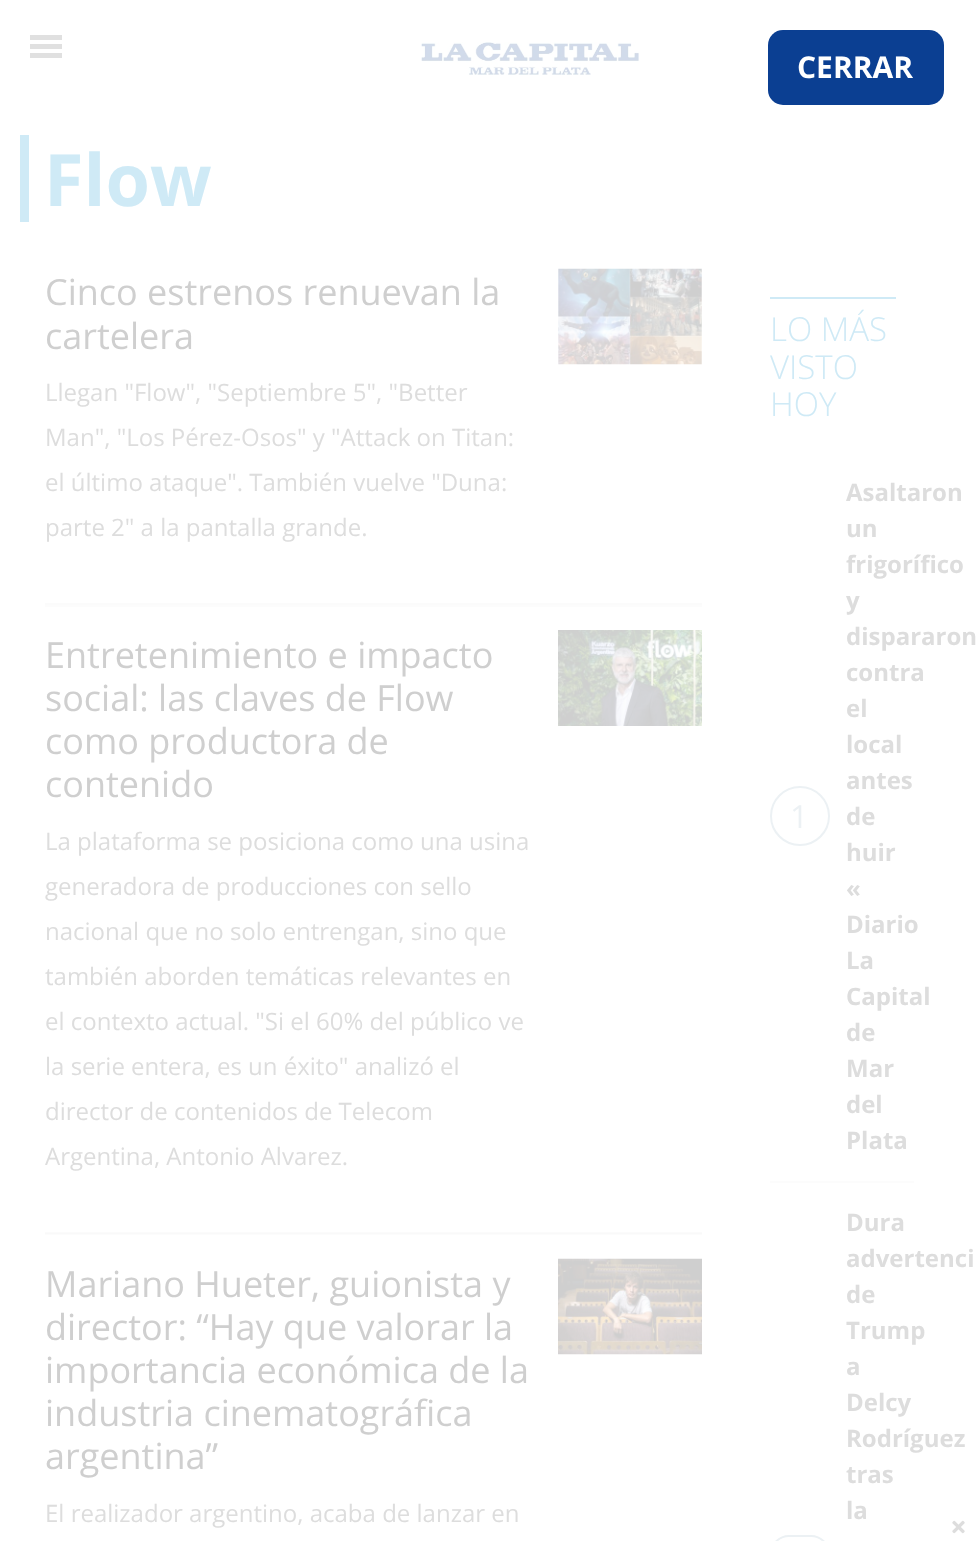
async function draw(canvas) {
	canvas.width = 980;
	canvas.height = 1541;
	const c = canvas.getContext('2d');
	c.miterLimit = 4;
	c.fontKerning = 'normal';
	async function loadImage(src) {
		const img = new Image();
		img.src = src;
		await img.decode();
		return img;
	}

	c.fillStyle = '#fff';
	c.fillRect(0, 0, 980, 1541);
	for (const [x, y, w, h, color] of [
		[45, 1234, 657, 1, '#fcfcfc'],
		[30, 35, 32, 5, '#e0e0e0'],
		[30, 44, 32, 5, '#e0e0e0'],
		[30, 53, 32, 5, '#e0e0e0'],
	]) {
		c.fillStyle = color;
		c.fillRect(x, y, w, h);
	}
	c.drawImage(await loadImage('img1.png'), 421, 42, 219, 33);
	c.fillStyle = '#0b3f92';
	c.beginPath();
	c.roundRect(768, 30, 176, 75, 15);
	c.fill();
	c.font = 'bold 30px Open Sans';
	c.fillStyle = '#fff';
	c.fillText('CERRAR', 797, 78);
	c.fillStyle = '#cfeaf6';
	c.fillRect(20, 135, 9, 87);
	c.font = 'bold 72px Open Sans';
	c.fillText('Flow', 44, 206);
	c.fillStyle = '#fbfbfb';
	c.fillRect(45, 603, 657, 2);
	c.font = '36px Open Sans';
	c.fillStyle = '#cfcfcf';
	c.fillText('Cinco estrenos renuevan la', 45, 305);
	c.fillText('cartelera', 45, 349);
	c.font = '24px Open Sans';
	c.fillStyle = '#ddd';
	for (const [text, x, y] of [
		['Llegan "Flow", "Septiembre 5", "Better', 45, 401],
		['Man", "Los Pérez-Osos" y "Attack on Titan:', 45, 446],
		['el último ataque". También vuelve "Duna:', 45, 491],
		['parte 2" a la pantalla grande.', 45, 536],
	]) {
		c.fillText(text, x, y);
	}
	c.drawImage(await loadImage('img2.png'), 558, 268, 144, 97);
	for (const [x, y, w, h, color] of [
		[45, 605, 657, 2, '#fcfcfc'],
		[45, 1232, 657, 1, '#fbfbfb'],
		[45, 1233, 657, 1, '#f9f9f9'],
	]) {
		c.fillStyle = color;
		c.fillRect(x, y, w, h);
	}
	c.font = '36px Open Sans';
	c.fillStyle = '#cfcfcf';
	for (const [text, x, y] of [
		['Entretenimiento e impacto', 45, 668],
		['social: las claves de Flow', 45, 711],
		['como productora de', 45, 754],
		['contenido', 45, 797],
	]) {
		c.fillText(text, x, y);
	}
	c.font = '24px Open Sans';
	c.fillStyle = '#ddd';
	for (const [text, x, y] of [
		['La plataforma se posiciona como una usina', 45, 850],
		['generadora de producciones con sello', 45, 895],
		['nacional que no solo entrengan, sino que', 45, 940],
		['también aborden temáticas relevantes en', 45, 985],
		['el contexto actual. "Si el 60% del público ve', 45, 1030],
		['la serie entera, es un éxito" analizó el', 45, 1075],
		['director de contenidos de Telecom', 45, 1120],
		['Argentina, Antonio Alvarez.', 45, 1165],
	]) {
		c.fillText(text, x, y);
	}
	c.drawImage(await loadImage('img3.png'), 558, 630, 144, 96);
	c.font = '36px Open Sans';
	c.fillStyle = '#cfcfcf';
	for (const [text, x, y] of [
		['Mariano Hueter, guionista y', 45, 1297],
		['director: “Hay que valorar la', 45, 1340],
		['importancia económica de la', 45, 1383],
		['industria cinematográfica', 45, 1426],
		['argentina”', 45, 1469],
	]) {
		c.fillText(text, x, y);
	}
	c.font = '24px Open Sans';
	c.fillStyle = '#ddd';
	c.fillText('El realizador argentino, acaba de lanzar en', 45, 1522);
	c.drawImage(await loadImage('img4.png'), 558, 1258, 144, 97);
	c.fillStyle = '#cfeaf6';
	c.fillRect(770, 297, 126, 2);
	c.font = '300 33px Open Sans';
	for (const [text, x, y] of [
		['LO MÁS', 770, 341],
		['VISTO', 770, 379],
		['HOY', 770, 416],
	]) {
		c.fillText(text, x, y);
	}
	c.fillStyle = '#fcfcfc';
	c.fillRect(770, 1181, 144, 2);
	c.font = 'bold 24px Open Sans';
	c.fillStyle = '#ddd';
	for (const [text, x, y] of [
		['Asaltaron', 846, 501],
		['un', 846, 537],
		['frigorífico', 846, 573],
		['y', 846, 609],
		['dispararon', 846, 645],
		['contra', 846, 681],
		['el', 846, 717],
		['local', 846, 753],
		['antes', 846, 789],
	]) {
		c.fillText(text, x, y);
	}
	c.beginPath();
	c.arc(800, 816, 29, 0, 2 * Math.PI);
	c.strokeStyle = '#ecf1f4';
	c.lineWidth = 2;
	c.stroke();
	c.font = '32px Open Sans';
	c.fillStyle = '#ecf1f4';
	c.fillText('1', 790, 828);
	c.font = 'bold 24px Open Sans';
	c.fillStyle = '#ddd';
	for (const [text, x, y] of [
		['de', 846, 825],
		['huir', 846, 861],
		['«', 846, 897],
		['Diario', 846, 933],
		['La', 846, 969],
		['Capital', 846, 1005],
		['de', 846, 1041],
		['Mar', 846, 1077],
		['del', 846, 1113],
		['Plata', 846, 1149],
		['Dura', 846, 1231],
		['advertenci', 846, 1267],
		['de', 846, 1303],
		['Trump', 846, 1339],
		['a', 846, 1375],
		['Delcy', 846, 1411],
		['Rodríguez', 846, 1447],
		['tras', 846, 1483],
		['la', 846, 1519],
	]) {
		c.fillText(text, x, y);
	}
	c.beginPath();
	c.roundRect(771, 1536, 58, 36, 29);
	c.stroke();
	c.drawImage(await loadImage('img5.png'), 952, 1520, 13, 14);
}

draw(document.querySelector('canvas'));
